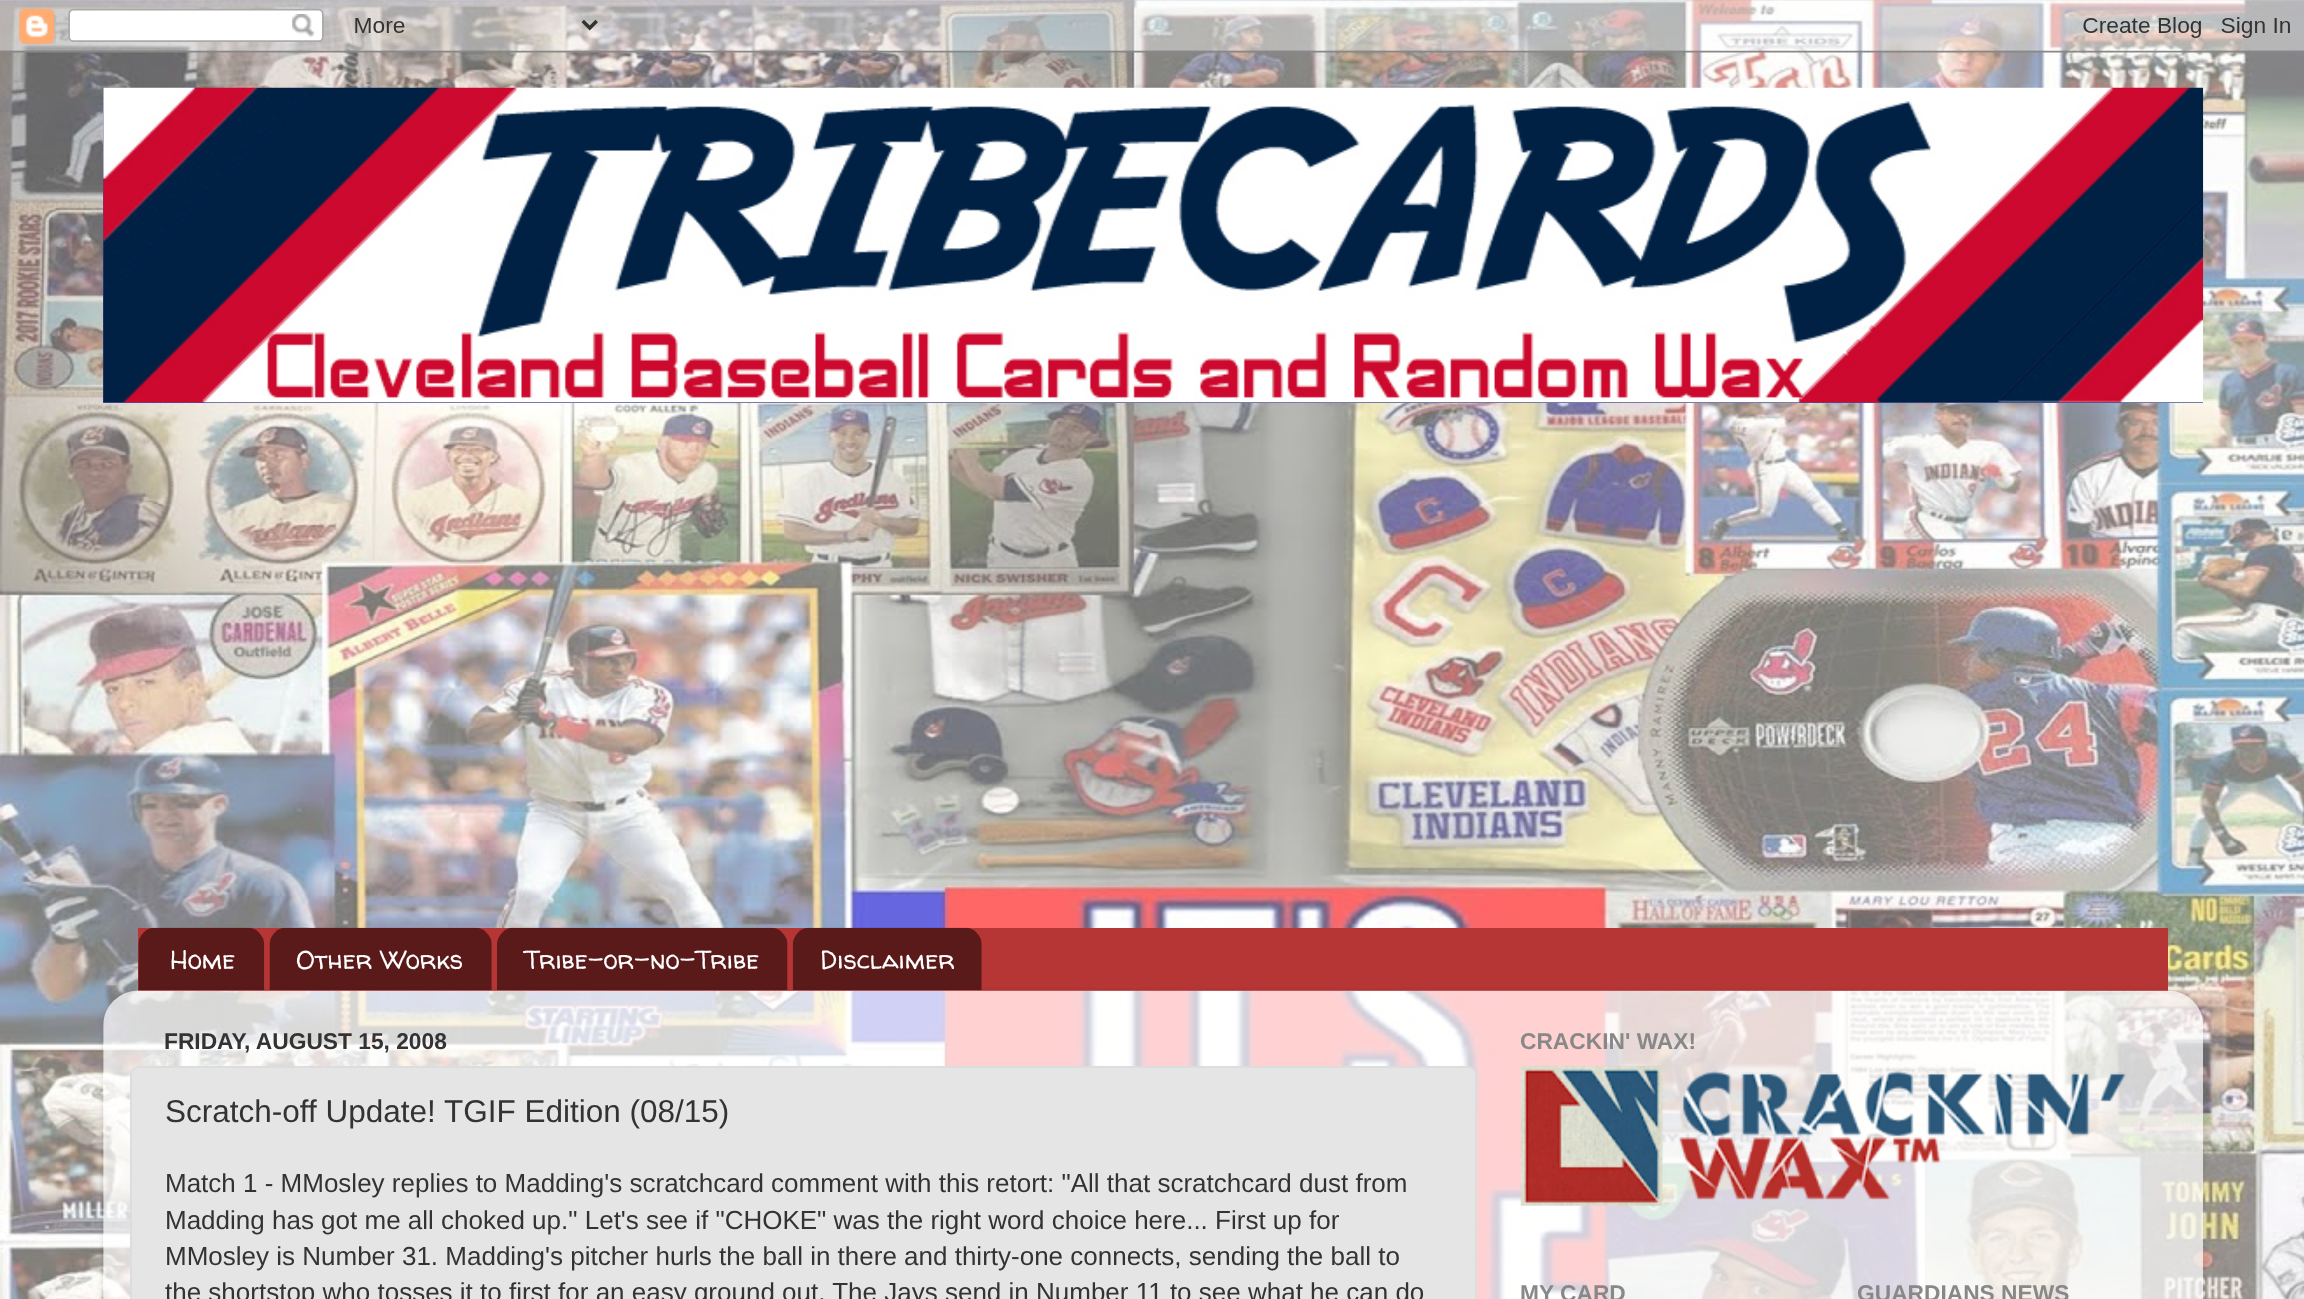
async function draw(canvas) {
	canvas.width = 2304;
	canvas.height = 1299;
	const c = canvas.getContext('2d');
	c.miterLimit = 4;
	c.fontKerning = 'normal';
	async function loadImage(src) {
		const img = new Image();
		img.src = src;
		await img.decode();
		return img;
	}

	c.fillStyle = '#fff';
	c.fillRect(0, 0, 2304, 1299);
	c.drawImage(await loadImage('img1.png'), 0, 0, 2304, 1299);
	c.drawImage(await loadImage('img2.png'), 0, 0, 2304, 53);
	c.fillStyle = '#494d9b';
	c.fillRect(103, 88, 2100, 315);
	c.drawImage(await loadImage('img3.png'), 103, 87, 2101, 316);
	c.fillStyle = '#b63535';
	c.fillRect(138, 928, 2030, 63);
	c.drawImage(await loadImage('img4.png'), 138, 927, 127, 64);
	c.font = '26.25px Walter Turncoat';
	c.fillStyle = '#fff';
	c.fillText('Home', 170, 969);
	c.drawImage(await loadImage('img5.png'), 269, 927, 223, 64);
	c.fillText('Other Works', 296, 969);
	c.drawImage(await loadImage('img6.png'), 497, 927, 291, 64);
	c.fillText('Tribe-or-no-Tribe', 524, 969);
	c.drawImage(await loadImage('img7.png'), 792, 927, 190, 64);
	c.fillText('Disclaimer', 820, 969);
	c.save();
	c.beginPath();
	c.moveTo(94, 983);
	c.lineTo(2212, 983);
	c.lineTo(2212, 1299);
	c.lineTo(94, 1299);
	c.closePath();
	c.moveTo(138, 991);
	c.lineTo(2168, 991);
	c.bezierCurveTo(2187.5, 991, 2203, 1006.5, 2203, 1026);
	c.lineTo(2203, 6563);
	c.lineTo(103, 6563);
	c.lineTo(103, 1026);
	c.bezierCurveTo(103, 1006.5, 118.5, 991, 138, 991);
	c.closePath();
	c.clip('evenodd');
	c.fillStyle = '#00000026';
	c.filter = 'blur(2.5px)';
	c.beginPath();
	c.roundRect(103, 992, 2100, 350, 35);
	c.fill();
	c.filter = 'none';
	c.restore();
	c.drawImage(await loadImage('img8.png'), 103, 990, 2101, 309);
	c.font = 'bold 22.75px Liberation Sans';
	c.fillStyle = '#333';
	c.fillText('FRIDAY, AUGUST 15, 2008', 164, 1049);
	c.fillStyle = '#e5e5e5';
	c.beginPath();
	c.roundRect(131, 1067, 1345, 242, 8);
	c.fill();
	c.strokeStyle = '#ddd';
	c.lineWidth = 2;
	c.stroke();
	c.font = '31.5px Liberation Sans';
	c.fillStyle = '#333';
	c.fillText('Scratch-off Update! TGIF Edition (08/15)', 165, 1122);
	c.font = '26px Liberation Sans';
	for (const [text, x, y] of [
		['Match 1 - MMosley replies to Madding\'s scratchcard comment with this retort: "All that scratchcard dust from', 165, 1192],
		['Madding has got me all choked up." Let\'s see if "CHOKE" was the right word choice here... First up for', 165, 1229],
		['MMosley is Number 31. Madding\'s pitcher hurls the ball in there and thirty-one connects, sending the ball to', 165, 1265],
		['the shortstop who tosses it to first for an easy ground out. The Jays send in Number 11 to see what he can do', 165, 1301],
	]) {
		c.fillText(text, x, y);
	}
	c.font = 'bold 22.75px Liberation Sans';
	c.fillStyle = '#888';
	c.fillText('CRACKIN\' WAX!', 1520, 1049);
	c.drawImage(await loadImage('img9.png'), 1520, 1065, 607, 141);
	c.fillText('MY CARD', 1520, 1301);
	c.fillText('GUARDIANS NEWS', 1857, 1301);
}

draw(document.querySelector('canvas'));
